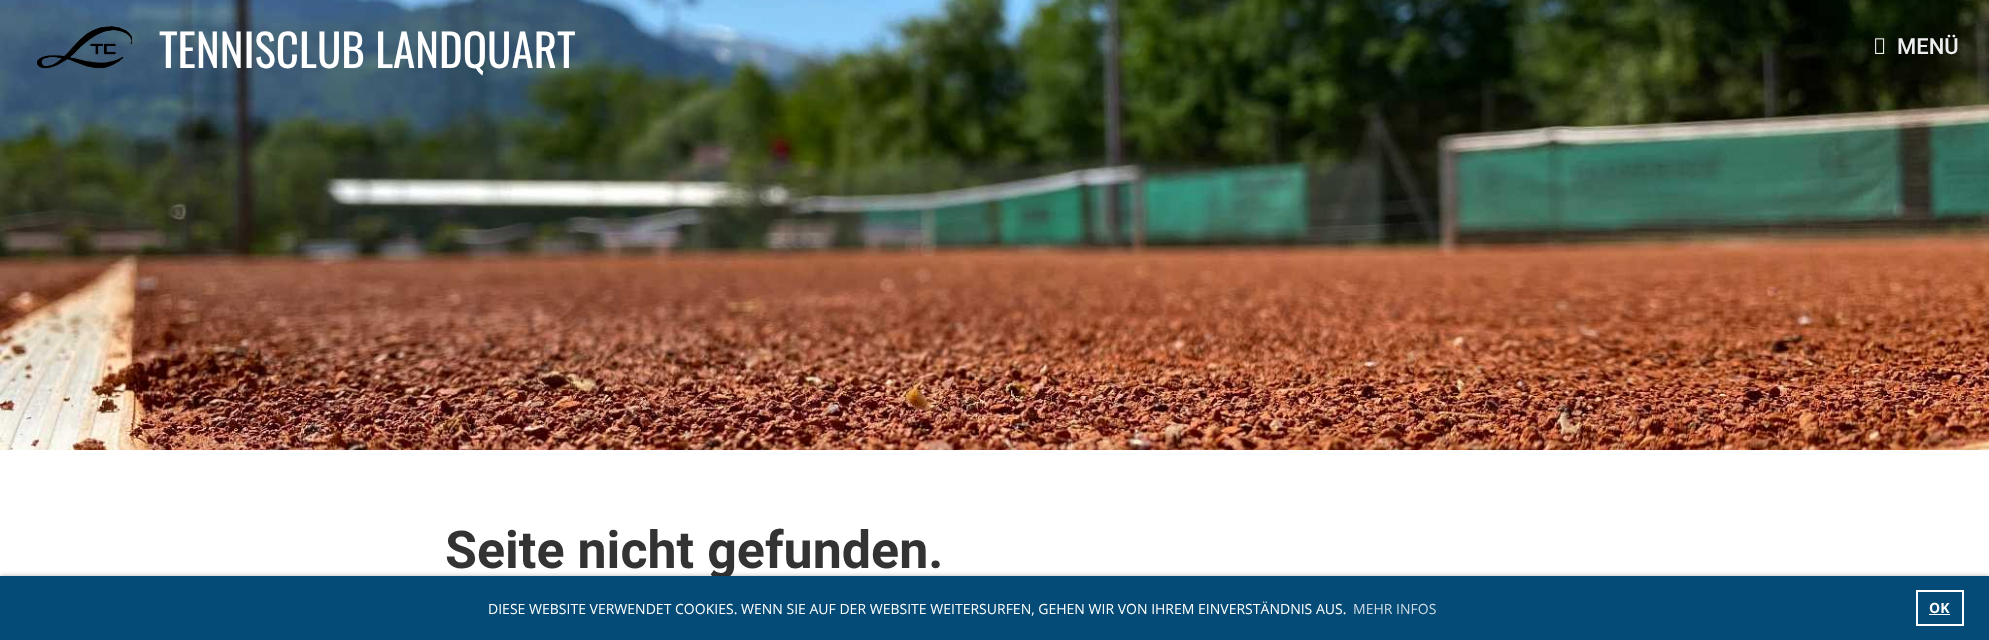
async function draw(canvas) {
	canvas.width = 1989;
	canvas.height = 640;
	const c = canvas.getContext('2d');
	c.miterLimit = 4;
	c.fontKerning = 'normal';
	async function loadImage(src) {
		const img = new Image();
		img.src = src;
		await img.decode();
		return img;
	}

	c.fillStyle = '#fff';
	c.fillRect(0, 0, 1989, 640);
	c.drawImage(await loadImage('img3.png'), 0, 0, 1989, 450);
	c.drawImage(await loadImage('img1.png'), 36, 26, 97, 43);
	c.font = '45px Oswald';
	c.fillText('TENNISCLUB LANDQUART', 159, 68);
	c.drawImage(await loadImage('img2.png'), 1875, 38, 10, 16);
	c.font = '500 22px Roboto';
	c.fillStyle = '#eee';
	c.fillText('MENÜ', 1897, 54);
	c.font = 'bold 52px Roboto';
	c.fillStyle = '#333';
	c.fillText('Seite nicht gefunden.', 445, 568);
	c.fillStyle = '#0000004d';
	c.filter = 'blur(2.5px)';
	c.beginPath();
	c.rect(0, 576, 1989, 64);
	c.fill();
	c.filter = 'none';
	c.fillStyle = '#044c77';
	c.fillRect(0, 576, 1989, 64);
	c.font = '14px Open Sans';
	c.fillStyle = '#fff';
	c.fillText('DIESE WEBSITE VERWENDET COOKIES. WENN SIE AUF DER WEBSITE WEITERSURFEN, GEHEN WIR VON IHREM EINVERSTÄNDNIS AUS.', 488, 614);
	c.fillStyle = '#cddbe4';
	c.fillText('MEHR INFOS', 1353, 614);
	c.strokeStyle = '#fff';
	c.lineWidth = 2;
	c.strokeRect(1917, 591, 46, 34);
	c.font = 'bold 14px Open Sans';
	c.fillStyle = '#fff';
	c.fillText('OK', 1929, 613);
	c.fillRect(1929, 614, 21, 1);
}

draw(document.querySelector('canvas'));
